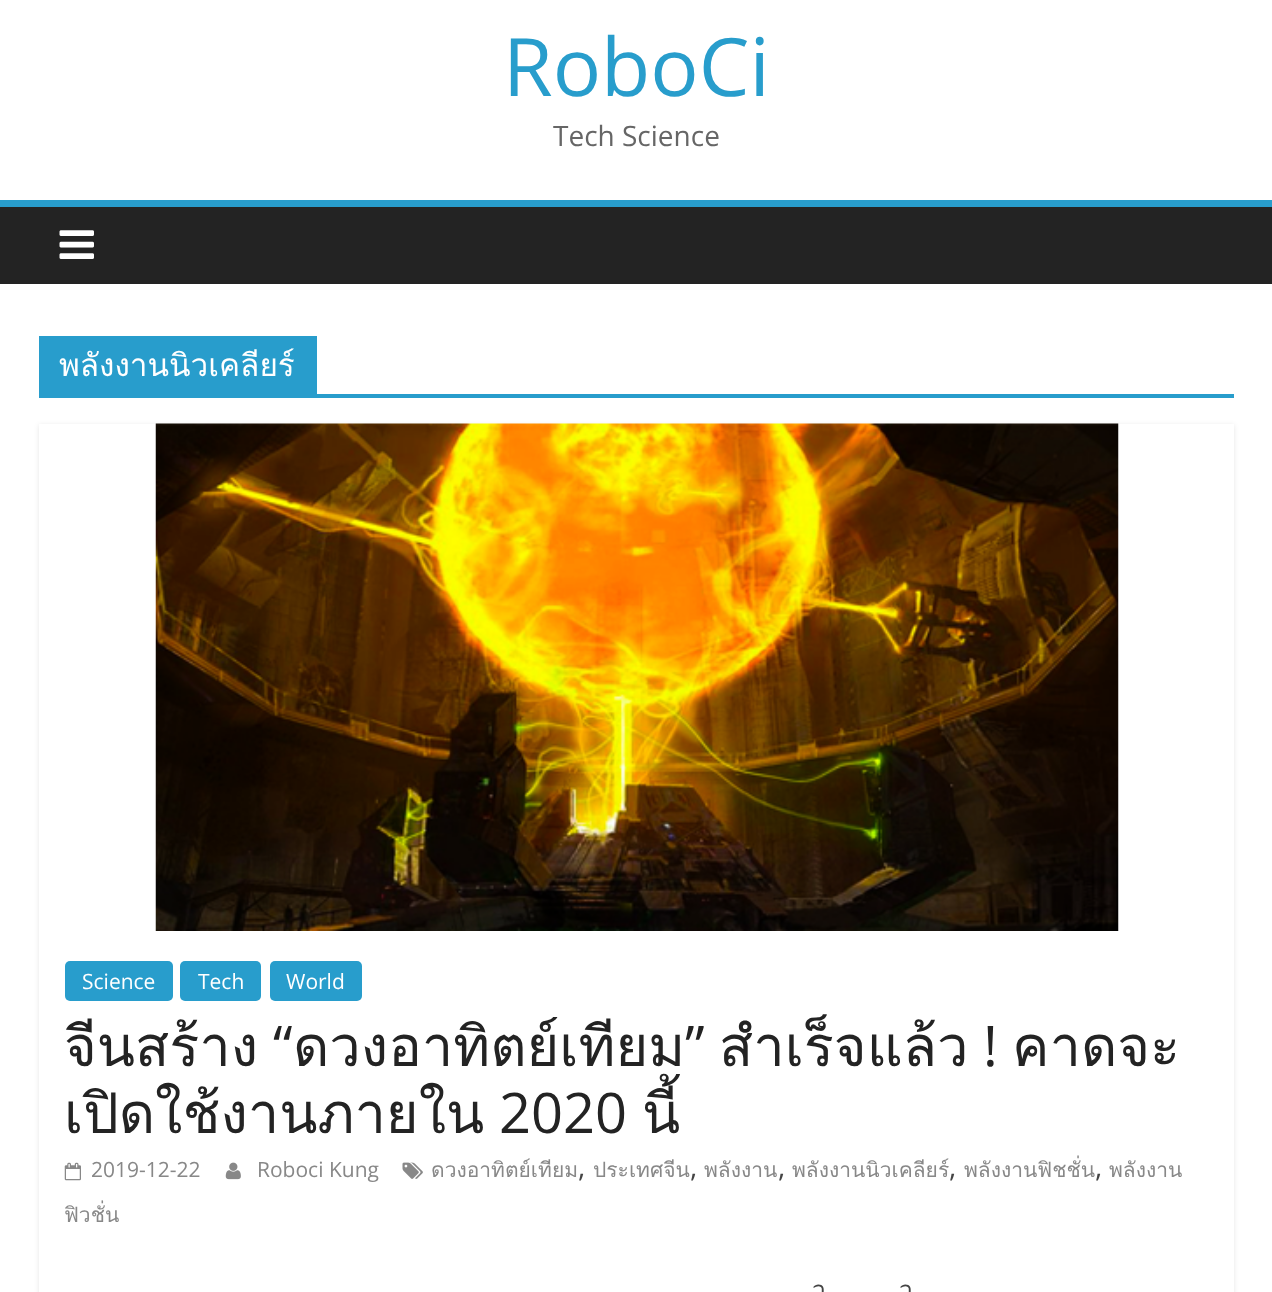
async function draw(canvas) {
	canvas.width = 1272;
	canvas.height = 1292;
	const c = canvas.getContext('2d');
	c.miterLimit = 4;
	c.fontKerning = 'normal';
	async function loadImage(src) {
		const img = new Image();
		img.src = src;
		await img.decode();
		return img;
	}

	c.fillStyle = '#fff';
	c.fillRect(0, 0, 1272, 1292);
	c.font = '80.5px Open Sans';
	c.fillStyle = '#289dcc';
	c.fillText('RoboCi', 503, 96);
	c.font = '28px Open Sans';
	c.fillStyle = '#666';
	c.fillText('Tech Science', 553, 146);
	c.fillStyle = '#232323';
	c.fillRect(0, 207, 1272, 77);
	c.fillStyle = '#289dcc';
	c.fillRect(0, 200, 1272, 7);
	c.drawImage(await loadImage('img1.png'), 59, 230, 35, 29);
	c.fillRect(39, 394, 1195, 4);
	c.fillRect(39, 336, 278, 58);
	c.font = '31.5px Loma';
	c.fillStyle = '#fff';
	c.fillText('พลังงานนิวเคลียร์', 59, 376);
	c.save();
	c.beginPath();
	c.moveTo(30, 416);
	c.lineTo(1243, 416);
	c.lineTo(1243, 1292);
	c.lineTo(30, 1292);
	c.closePath();
	c.moveTo(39, 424);
	c.lineTo(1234, 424);
	c.lineTo(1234, 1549);
	c.lineTo(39, 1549);
	c.closePath();
	c.clip('evenodd');
	c.fillStyle = '#0000001a';
	c.filter = 'blur(2.5px)';
	c.beginPath();
	c.rect(39, 425, 1195, 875);
	c.fill();
	c.filter = 'none';
	c.restore();
	c.drawImage(await loadImage('img2.png'), 155, 423, 964, 508);
	c.fillStyle = '#289dcc';
	c.beginPath();
	c.roundRect(65, 961, 108, 40, 5);
	c.fill();
	c.font = '21px Open Sans';
	c.fillStyle = '#fff';
	c.fillText('Science', 82, 989);
	c.fillStyle = '#289dcc';
	c.beginPath();
	c.roundRect(180, 961, 81, 40, 5);
	c.fill();
	c.fillStyle = '#fff';
	c.fillText('Tech', 198, 989);
	c.fillStyle = '#289dcc';
	c.beginPath();
	c.roundRect(270, 961, 92, 40, 5);
	c.fill();
	c.fillStyle = '#fff';
	c.fillText('World', 286, 989);
	c.font = '56px Loma';
	c.fillStyle = '#232323';
	c.fillText('จีนสร้าง', 64, 1066);
	c.font = '56px Open Sans';
	c.fillText('“', 273, 1066);
	c.font = '56px Loma';
	c.fillText('ดวงอาทิตย์เทียม', 293, 1066);
	c.font = '56px Open Sans';
	c.fillText('”', 685, 1066);
	c.font = '56px Loma';
	c.fillText('สำเร็จแล้ว', 719, 1066);
	c.font = '56px Open Sans';
	c.fillText('!', 983, 1066);
	c.font = '56px Loma';
	c.fillText('คาดจะ', 1012, 1066);
	c.fillText('เปิดใช้งานภายใน', 64, 1133);
	c.font = '56px Open Sans';
	c.fillText('2020', 499, 1133);
	c.font = '56px Loma';
	c.fillText('นี้', 642, 1133);
	c.drawImage(await loadImage('img3.png'), 402, 1162, 21, 17);
	c.font = '21px Loma';
	c.fillStyle = '#888';
	c.fillText('ดวงอาทิตย์เทียม', 431, 1177);
	c.font = '28px Open Sans';
	c.fillStyle = '#444';
	c.fillText(',', 578, 1177);
	c.font = '21px Loma';
	c.fillStyle = '#888';
	c.fillText('ประเทศจีน', 593, 1177);
	c.font = '28px Open Sans';
	c.fillStyle = '#444';
	c.fillText(',', 690, 1177);
	c.font = '21px Loma';
	c.fillStyle = '#888';
	c.fillText('พลังงาน', 704, 1177);
	c.font = '28px Open Sans';
	c.fillStyle = '#444';
	c.fillText(',', 778, 1177);
	c.font = '21px Loma';
	c.fillStyle = '#888';
	c.fillText('พลังงานนิวเคลียร์', 792, 1177);
	c.font = '28px Open Sans';
	c.fillStyle = '#444';
	c.fillText(',', 949, 1177);
	c.font = '21px Loma';
	c.fillStyle = '#888';
	c.fillText('พลังงานฟิชชั่น', 964, 1177);
	c.font = '28px Open Sans';
	c.fillStyle = '#444';
	c.fillText(',', 1095, 1177);
	c.font = '21px Loma';
	c.fillStyle = '#888';
	c.fillText('พลังงาน', 1109, 1177);
	c.fillText('ฟิวชั่น', 64, 1222);
	c.drawImage(await loadImage('img4.png'), 64, 1162, 17, 19);
	c.font = '21px Open Sans';
	c.fillText('2019-12-22', 91, 1177);
	c.drawImage(await loadImage('img5.png'), 225, 1162, 16, 18);
	c.fillText('Roboci Kung', 257, 1177);
	c.wordSpacing = '-1px';
	c.font = '24px Loma';
	c.fillStyle = '#444';
	c.fillText('ว', 812, 1298);
	c.fillText('ว', 899, 1298);
}

draw(document.querySelector('canvas'));
